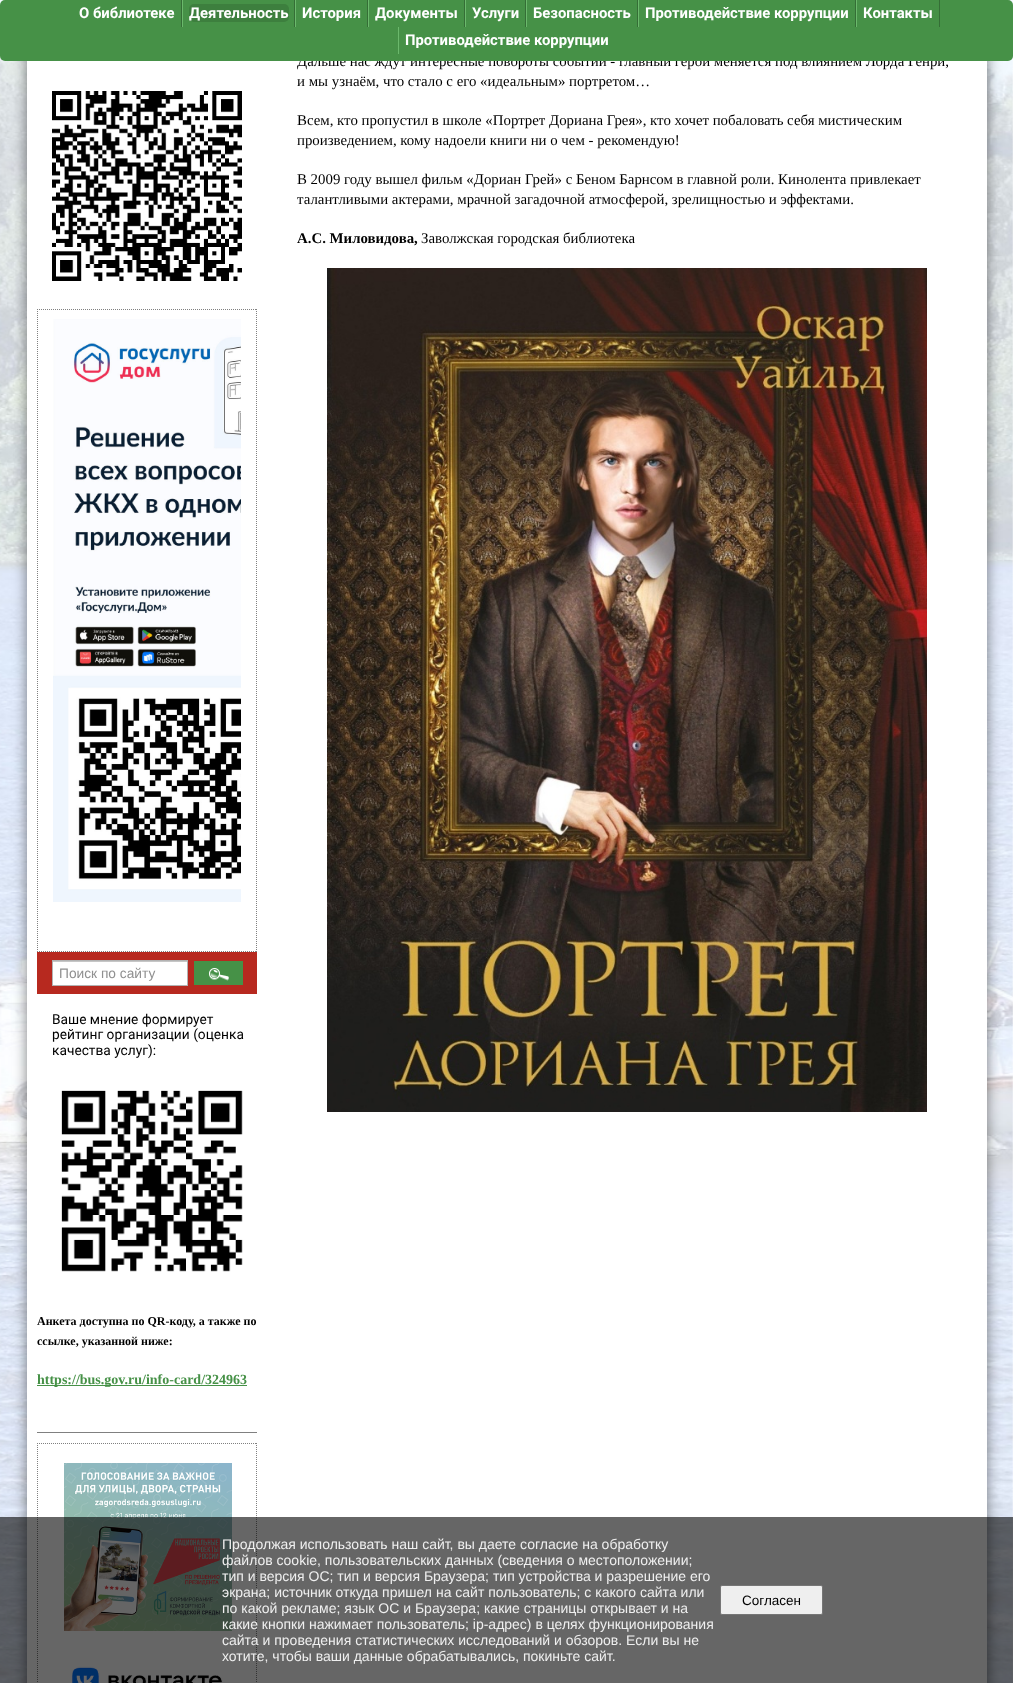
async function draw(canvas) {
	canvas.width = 1013;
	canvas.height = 1683;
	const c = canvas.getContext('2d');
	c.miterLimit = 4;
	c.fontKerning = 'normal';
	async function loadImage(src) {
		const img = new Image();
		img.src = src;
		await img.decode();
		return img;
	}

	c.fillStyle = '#fff';
	c.fillRect(0, 0, 1013, 1683);
	c.drawImage(await loadImage('img1.png'), 0, 0, 1013, 1683);
	c.fillStyle = '#00000080';
	c.filter = 'blur(7px)';
	c.beginPath();
	c.roundRect(27, -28, 960, 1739, 7);
	c.fill();
	c.filter = 'none';
	c.fillStyle = '#fff';
	c.fillRect(27, 61, 960, 1622);
	c.save();
	c.beginPath();
	c.rect(297, 0, 660, 1137);
	c.clip();
	c.font = '14.85px Liberation Serif';
	c.fillStyle = '#000';
	c.fillText('Дальше нас ждут интересные повороты событий - главный герой меняется под влиянием Лорда Генри,', 297, 66);
	c.restore();
	c.fillStyle = '#469147';
	c.beginPath();
	c.roundRect(0, 0, 1013, 61, 5);
	c.fill();
	c.fillStyle = '#356e36';
	c.fillRect(181, 0, 1, 27);
	c.font = 'bold 14.85px Roboto';
	c.fillStyle = '#fff';
	c.fillText('О библиотеке', 79, 18);
	c.fillStyle = '#356e36';
	c.fillRect(294, 0, 1, 27);
	c.fillStyle = '#6bb86c';
	c.fillRect(182, 0, 1, 27);
	c.fillStyle = '#3d7f3e';
	c.beginPath();
	c.roundRect(189, 4, 100, 18, 5);
	c.fill();
	c.fillStyle = '#fff';
	c.fillText('Деятельность', 189, 18);
	c.fillStyle = '#356e36';
	c.fillRect(367, 0, 1, 27);
	c.fillStyle = '#6bb86c';
	c.fillRect(295, 0, 1, 27);
	c.fillStyle = '#fff';
	c.fillText('История', 302, 18);
	c.fillStyle = '#356e36';
	c.fillRect(464, 0, 1, 27);
	c.fillStyle = '#6bb86c';
	c.fillRect(368, 0, 1, 27);
	c.fillStyle = '#fff';
	c.fillText('Документы', 375, 18);
	c.fillStyle = '#356e36';
	c.fillRect(525, 0, 1, 27);
	c.fillStyle = '#6bb86c';
	c.fillRect(465, 0, 1, 27);
	c.fillStyle = '#fff';
	c.fillText('Услуги', 472, 18);
	c.fillStyle = '#356e36';
	c.fillRect(637, 0, 1, 27);
	c.fillStyle = '#6bb86c';
	c.fillRect(526, 0, 1, 27);
	c.fillStyle = '#fff';
	c.fillText('Безопасность', 533, 18);
	c.fillStyle = '#356e36';
	c.fillRect(855, 0, 1, 27);
	c.fillStyle = '#6bb86c';
	c.fillRect(638, 0, 1, 27);
	c.fillStyle = '#fff';
	c.fillText('Противодействие коррупции', 645, 18);
	c.fillStyle = '#356e36';
	c.fillRect(939, 0, 1, 27);
	c.fillStyle = '#6bb86c';
	c.fillRect(856, 0, 1, 27);
	c.fillStyle = '#fff';
	c.fillText('Контакты', 863, 18);
	c.fillStyle = '#6bb86c';
	c.fillRect(398, 27, 1, 27);
	c.fillStyle = '#fff';
	c.fillText('Противодействие коррупции', 405, 45);
	c.font = '14.85px Liberation Serif';
	c.fillStyle = '#000';
	for (const [text, x, y] of [
		['и мы узнаём, что стало с его «идеальным» портретом…', 297, 86],
		['Всем, кто пропустил в школе «Портрет Дориана Грея», кто хочет побаловать себя мистическим', 297, 125],
		['произведением, кому надоели книги ни о чем - рекомендую!', 297, 145],
		['В 2009 году вышел фильм «Дориан Грей» с Беном Барнсом в главной роли. Кинолента привлекает', 297, 184],
		['талантливыми актерами, мрачной загадочной атмосферой, зрелищностью и эффектами.', 297, 204],
	]) {
		c.fillText(text, x, y);
	}
	c.font = 'bold 14.85px Liberation Serif';
	c.fillText('А.С. Миловидова,', 297, 243);
	c.font = '14.85px Liberation Serif';
	c.fillText('Заволжская городская библиотека', 421, 243);
	c.drawImage(await loadImage('img2.png'), 327, 268, 600, 844);
	c.drawImage(await loadImage('img3.png'), 52, 91, 190, 190);
	c.beginPath();
	c.moveTo(37, 309.5);
	c.lineTo(257, 309.5);
	c.strokeStyle = '#808080';
	c.setLineDash([1, 1]);
	c.stroke();
	c.beginPath();
	c.moveTo(256.5, 309);
	c.lineTo(256.5, 952);
	c.stroke();
	c.beginPath();
	c.moveTo(37, 951.5);
	c.lineTo(257, 951.5);
	c.stroke();
	c.beginPath();
	c.moveTo(37.5, 309);
	c.lineTo(37.5, 952);
	c.stroke();
	c.drawImage(await loadImage('img4.png'), 53, 319, 188, 583);
	for (const [x, y, w, h, color] of [
		[37, 952, 220, 42, '#b7291f'],
		[53, 962, 134, 23, '#fff'],
		[53, 961, 134, 1, '#c6c6c6'],
	]) {
		c.fillStyle = color;
		c.fillRect(x, y, w, h);
	}
	c.strokeStyle = '#b3b3b3';
	c.setLineDash([]);
	c.strokeRect(52.5, 960.5, 135, 25);
	c.font = '13.75px Liberation Sans';
	c.fillStyle = '#909090';
	c.fillText('Поиск по сайту', 59, 978);
	c.fillStyle = '#469147';
	c.fillRect(194, 961, 49, 24);
	c.drawImage(await loadImage('img5.png'), 209, 968, 20, 13);
	c.font = '13.75px Roboto';
	c.fillStyle = '#000';
	for (const [text, x, y] of [
		['Ваше мнение формирует', 52, 1024],
		['рейтинг организации (оценка', 52, 1039],
		['качества услуг):', 52, 1055],
	]) {
		c.fillText(text, x, y);
	}
	c.drawImage(await loadImage('img6.png'), 61, 1090, 182, 182);
	c.font = 'bold 12px Liberation Serif';
	c.fillText('Анкета доступна по QR-коду, а также по', 37, 1325);
	c.fillText('ссылке, указанной ниже:', 37, 1345);
	c.fillStyle = '#469147';
	c.fillRect(37, 1385, 210, 1);
	c.font = 'bold 14px Liberation Serif';
	c.fillText('https://bus.gov.ru/info-card/324963', 37, 1384);
	c.fillStyle = '#808080';
	c.fillRect(37, 1432, 220, 1);
	c.beginPath();
	c.moveTo(37, 1443.5);
	c.lineTo(257, 1443.5);
	c.strokeStyle = '#808080';
	c.setLineDash([1, 1]);
	c.stroke();
	c.beginPath();
	c.moveTo(256.5, 1443);
	c.lineTo(256.5, 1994);
	c.stroke();
	c.beginPath();
	c.moveTo(37.5, 1443);
	c.lineTo(37.5, 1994);
	c.stroke();
	c.drawImage(await loadImage('img7.png'), 64, 1463, 168, 168);
	c.drawImage(await loadImage('img8.png'), 72, 1666, 151, 17);
	c.fillStyle = '#00000099';
	c.fillRect(0, 1517, 1013, 166);
	c.font = '14px Liberation Sans';
	c.fillStyle = '#efefef';
	for (const [text, x, y] of [
		['Продолжая использовать наш сайт, вы даете согласие на обработку', 222, 1549],
		['файлов cookie, пользовательских данных (сведения о местоположении;', 222, 1565],
		['тип и версия ОС; тип и версия Браузера; тип устройства и разрешение его', 222, 1581],
		['экрана; источник откуда пришел на сайт пользователь; с какого сайта или', 222, 1597],
		['по какой рекламе; язык ОС и Браузера; какие страницы открывает и на', 222, 1613],
		['какие кнопки нажимает пользователь; ip-адрес) в целях функционирования', 222, 1629],
		['сайта и проведения статистических исследований и обзоров. Если вы не', 222, 1645],
		['хотите, чтобы ваши данные обрабатывались, покиньте сайт.', 222, 1661],
	]) {
		c.fillText(text, x, y);
	}
	c.beginPath();
	c.roundRect(720.5, 1585.5, 102, 29, 1.5);
	c.fill();
	c.strokeStyle = '#767676';
	c.setLineDash([]);
	c.stroke();
	c.font = '13.5px Liberation Sans';
	c.fillStyle = '#000';
	c.fillText('Согласен', 742, 1605);
}

draw(document.querySelector('canvas'));
